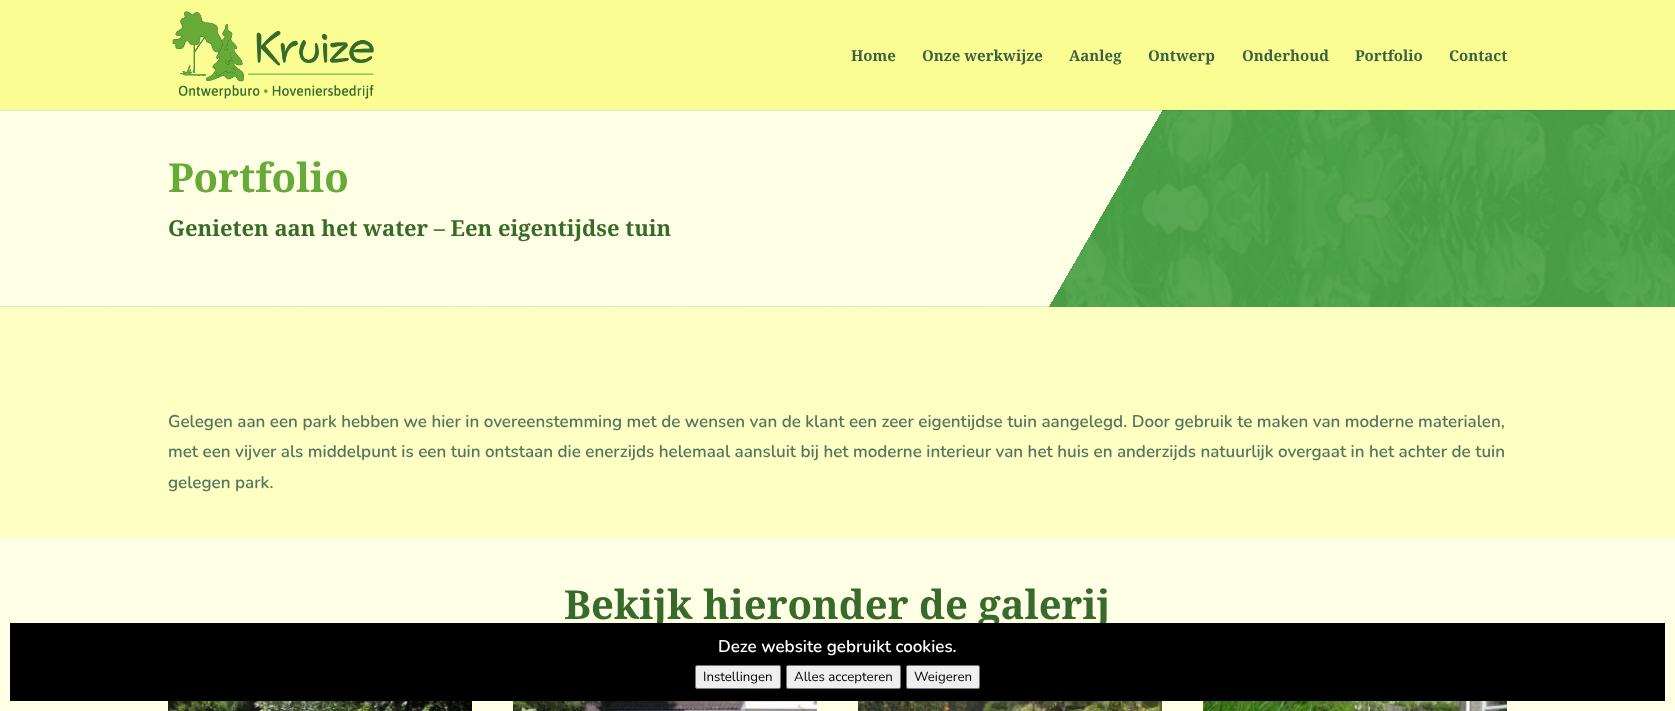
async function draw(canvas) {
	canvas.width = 1675;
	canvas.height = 711;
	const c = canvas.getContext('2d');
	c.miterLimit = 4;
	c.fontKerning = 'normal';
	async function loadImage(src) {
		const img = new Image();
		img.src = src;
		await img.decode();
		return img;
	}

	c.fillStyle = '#fff';
	c.fillRect(0, 0, 1675, 711);
	c.drawImage(await loadImage('img2.png'), 0, 110, 1675, 197);
	c.fillStyle = '#0000001a';
	c.fillRect(0, 110, 1675, 1);
	c.fillStyle = '#fafe92';
	c.fillRect(0, 0, 1675, 110);
	c.drawImage(await loadImage('img1.png'), 172, 11, 202, 88);
	c.font = 'bold 15px Noto Serif';
	c.fillStyle = '#3b6144';
	for (const [text, x, y] of [
		['Home', 851, 61],
		['Onze werkwijze', 922, 61],
		['Aanleg', 1069, 61],
		['Ontwerp', 1148, 61],
		['Onderhoud', 1242, 61],
		['Portfolio', 1355, 61],
		['Contact', 1449, 61],
	]) {
		c.fillText(text, x, y);
	}
	c.font = 'bold 40px Noto Serif';
	c.fillStyle = '#68aa38';
	c.fillText('Portfolio', 168, 192);
	c.font = 'bold 22px Noto Serif';
	c.fillStyle = '#386b2b';
	c.fillText('Genieten aan het water – Een eigentijdse tuin', 168, 236);
	c.fillStyle = '#fdffc3';
	c.fillRect(0, 307, 1675, 231);
	c.font = '200 17px Nunito';
	c.fillStyle = '#56755e';
	for (const [text, x, y] of [
		['Gelegen aan een park hebben we hier in overeenstemming met de wensen van de klant een zeer eigentijdse tuin aangelegd. Door gebruik te maken van moderne materialen,', 168, 427],
		['met een vijver als middelpunt is een tuin ontstaan die enerzijds helemaal aansluit bij het moderne interieur van het huis en anderzijds natuurlijk overgaat in het achter de tuin', 168, 457],
		['gelegen park.', 168, 488],
	]) {
		c.fillText(text, x, y);
	}
	c.fillStyle = '#feffe4';
	c.fillRect(0, 538, 1675, 173);
	c.font = 'bold 40px Noto Serif';
	c.fillStyle = '#386b2b';
	c.fillText('Bekijk hieronder de galerij', 564, 619);
	c.drawImage(await loadImage('img3.png'), 168, 701, 304, 10);
	c.drawImage(await loadImage('img4.png'), 513, 701, 304, 10);
	c.drawImage(await loadImage('img5.png'), 858, 701, 304, 10);
	c.drawImage(await loadImage('img6.png'), 1203, 701, 304, 10);
	c.fillStyle = '#000';
	c.fillRect(10, 623, 1655, 78);
	c.font = '200 17px Nunito';
	c.fillStyle = '#fff';
	c.fillText('Deze website gebruikt cookies.', 718, 652);
	c.fillStyle = '#efefef';
	c.beginPath();
	c.roundRect(695.5, 665.5, 85, 23, 1.5);
	c.fill();
	c.strokeStyle = '#767676';
	c.stroke();
	c.font = '200 13.25px "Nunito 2"';
	c.fillStyle = '#000';
	c.fillText('Instellingen', 703, 681);
	c.fillStyle = '#efefef';
	c.beginPath();
	c.roundRect(786.5, 665.5, 114, 23, 1.5);
	c.fill();
	c.stroke();
	c.fillStyle = '#000';
	c.fillText('Alles accepteren', 794, 681);
	c.fillStyle = '#efefef';
	c.beginPath();
	c.roundRect(906.5, 665.5, 73, 23, 1.5);
	c.fill();
	c.stroke();
	c.fillStyle = '#000';
	c.fillText('Weigeren', 914, 681);
}

draw(document.querySelector('canvas'));
